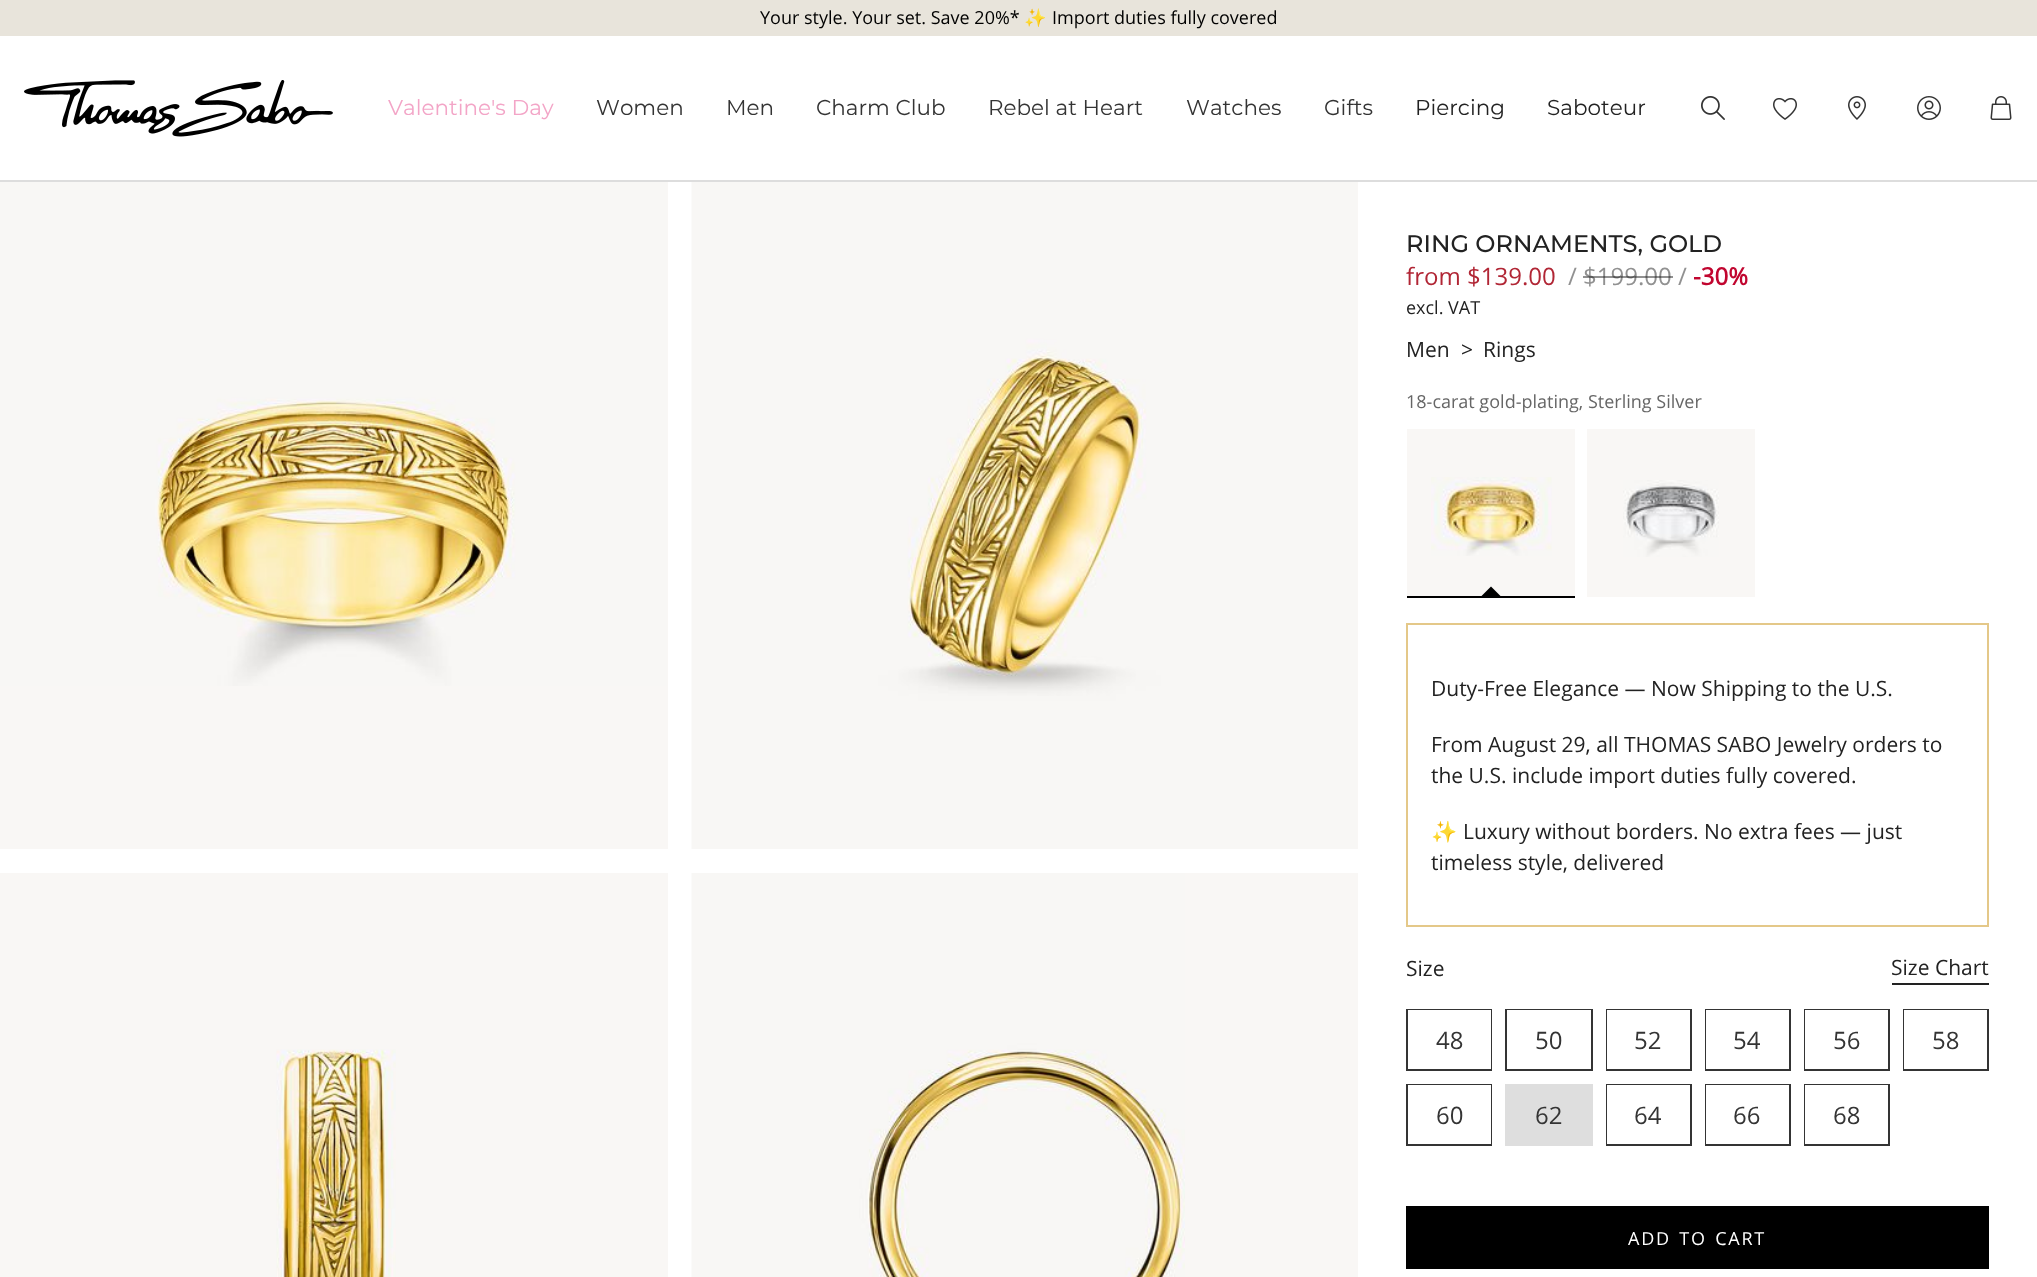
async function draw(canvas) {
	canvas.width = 2037;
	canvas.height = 1277;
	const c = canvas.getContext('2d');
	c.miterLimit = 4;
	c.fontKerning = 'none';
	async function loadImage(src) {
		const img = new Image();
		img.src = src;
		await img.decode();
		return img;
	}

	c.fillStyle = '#fff';
	c.fillRect(0, 0, 2037, 1277);
	c.fillStyle = '#ddd';
	c.fillRect(0, 180, 2037, 2);
	c.fillStyle = '#e8e4db';
	c.fillRect(0, 0, 2037, 36);
	c.font = '18px Open Sans';
	c.fillStyle = '#000';
	c.fillText('Your style. Your set. Save 20%*', 760, 24);
	c.font = '18px Noto Color Emoji';
	c.fillText('✨', 1024, 24);
	c.font = '18px Open Sans';
	c.fillText('Import duties fully covered', 1052, 24);
	c.drawImage(await loadImage('img1.png'), 24, 80, 309, 57);
	c.font = '100 21.5px "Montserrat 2"';
	c.fillStyle = '#f3a5c7';
	c.fillText('Valentine\'s Day', 388, 115);
	c.fillStyle = '#343434';
	for (const [text, x, y] of [
		['Women', 596, 115],
		['Men', 726, 115],
		['Charm Club', 816, 115],
		['Rebel at Heart', 988, 115],
		['Watches', 1186, 115],
		['Gifts', 1324, 115],
	]) {
		c.fillText(text, x, y);
	}
	c.fillStyle = '#222';
	c.fillText('Piercing', 1415, 115);
	c.fillText('Saboteur', 1547, 115);
	c.drawImage(await loadImage('img2.png'), 1701, 96, 24, 24);
	c.drawImage(await loadImage('img3.png'), 1773, 98, 24, 22);
	c.drawImage(await loadImage('img4.png'), 1848, 96, 18, 24);
	c.drawImage(await loadImage('img5.png'), 1917, 96, 24, 24);
	c.drawImage(await loadImage('img6.png'), 1990, 96, 22, 24);
	c.fillStyle = '#f9f7f5';
	c.fillRect(0, 182, 668, 667);
	c.drawImage(await loadImage('img7.png'), 0, 182, 667, 504);
	c.fillRect(1357, 182, 1, 667);
	c.drawImage(await loadImage('img8.png'), 691, 182, 666, 667);
	c.fillRect(0, 873, 668, 404);
	c.drawImage(await loadImage('img9.png'), 276, 1049, 120, 228);
	c.fillRect(1185, 873, 173, 404);
	c.drawImage(await loadImage('img10.png'), 691, 873, 494, 404);
	c.font = '100 24px Montserrat';
	c.fillStyle = '#222';
	c.fillText('RING ORNAMENTS, GOLD', 1406, 252);
	c.font = '24px Open Sans';
	c.fillStyle = '#b12635';
	c.fillText('from $139.00', 1406, 285);
	c.fillStyle = '#919191';
	c.fillText('/ $199.00 /', 1568, 285);
	c.font = 'bold 24px Open Sans';
	c.fillStyle = '#c1052f';
	c.fillText('-30%', 1693, 285);
	c.fillStyle = '#22222280';
	c.fillRect(1583, 276, 90, 2);
	c.font = '18px Open Sans';
	c.fillStyle = '#222';
	c.fillText('excl. VAT', 1406, 314);
	c.font = '21px Open Sans';
	for (const [text, x, y] of [
		['Men', 1406, 357],
		['>', 1461, 357],
		['Rings', 1483, 357],
	]) {
		c.fillText(text, x, y);
	}
	c.font = '18px Open Sans';
	c.fillStyle = '#666';
	c.fillText('18-carat gold-plating, Sterling Silver', 1406, 408);
	c.fillStyle = '#f9f7f5';
	c.fillRect(1407, 429, 168, 167);
	c.drawImage(await loadImage('img11.png'), 1431, 477, 121, 79);
	c.fillStyle = '#000';
	c.fillRect(1407, 596, 168, 2);
	c.beginPath();
	c.moveTo(1501.5, 597);
	c.lineTo(1480.5, 597);
	c.lineTo(1491, 586.5);
	c.closePath();
	c.fill();
	c.fillStyle = '#f9f7f5';
	c.fillRect(1587, 429, 168, 168);
	c.drawImage(await loadImage('img12.png'), 1623, 480, 96, 77);
	c.strokeStyle = '#e4c889';
	c.lineWidth = 2;
	c.strokeRect(1407, 624, 581, 302);
	c.font = '21px Open Sans';
	c.fillStyle = '#222';
	for (const [text, x, y] of [
		['Duty-Free Elegance — Now Shipping to the U.S.', 1431, 696],
		['From August 29, all THOMAS SABO Jewelry orders to', 1431, 752],
		['the U.S. include import duties fully covered.', 1431, 783],
	]) {
		c.fillText(text, x, y);
	}
	c.font = '21px Noto Color Emoji';
	c.fillText('✨', 1431, 839);
	c.font = '21px Open Sans';
	for (const [text, x, y] of [
		['Luxury without borders. No extra fees — just', 1463, 839],
		['timeless style, delivered', 1431, 870],
		['Size', 1406, 976],
	]) {
		c.fillText(text, x, y);
	}
	c.fillRect(1892, 983, 97, 2);
	c.fillText('Size Chart', 1891, 975);
	c.strokeStyle = '#343434';
	c.strokeRect(1407, 1009, 85, 61);
	c.strokeStyle = '#fff';
	c.strokeRect(1405, 1008, 88, 64);
	c.font = '24px Open Sans';
	c.fillStyle = '#343434';
	c.fillText('48', 1436, 1049);
	c.strokeStyle = '#343434';
	c.strokeRect(1506, 1009, 86, 61);
	c.strokeStyle = '#fff';
	c.strokeRect(1504, 1008, 90, 64);
	c.fillText('50', 1535, 1049);
	c.strokeStyle = '#343434';
	c.strokeRect(1606, 1009, 85, 61);
	c.strokeStyle = '#fff';
	c.strokeRect(1605, 1008, 88, 64);
	c.fillText('52', 1634, 1049);
	c.strokeStyle = '#343434';
	c.strokeRect(1705, 1009, 85, 61);
	c.strokeStyle = '#fff';
	c.strokeRect(1704, 1008, 88, 64);
	c.fillText('54', 1733, 1049);
	c.strokeStyle = '#343434';
	c.strokeRect(1804, 1009, 85, 61);
	c.strokeStyle = '#fff';
	c.strokeRect(1803, 1008, 88, 64);
	c.fillText('56', 1833, 1049);
	c.strokeStyle = '#343434';
	c.strokeRect(1903, 1009, 85, 61);
	c.strokeStyle = '#fff';
	c.strokeRect(1902, 1008, 88, 64);
	c.fillText('58', 1932, 1049);
	c.strokeStyle = '#343434';
	c.strokeRect(1407, 1084, 85, 61);
	c.strokeStyle = '#fff';
	c.strokeRect(1405, 1083, 88, 64);
	c.fillText('60', 1436, 1124);
	c.fillStyle = '#dedede';
	c.fillRect(1505, 1084, 88, 62);
	c.fillStyle = '#343434';
	c.fillText('62', 1535, 1124);
	c.strokeStyle = '#343434';
	c.strokeRect(1606, 1084, 85, 61);
	c.strokeStyle = '#fff';
	c.strokeRect(1605, 1083, 88, 64);
	c.fillText('64', 1634, 1124);
	c.strokeStyle = '#343434';
	c.strokeRect(1705, 1084, 85, 61);
	c.strokeStyle = '#fff';
	c.strokeRect(1704, 1083, 88, 64);
	c.fillText('66', 1733, 1124);
	c.strokeStyle = '#343434';
	c.strokeRect(1804, 1084, 85, 61);
	c.strokeStyle = '#fff';
	c.strokeRect(1803, 1083, 88, 64);
	c.fillText('68', 1833, 1124);
	c.fillStyle = '#000';
	c.fillRect(1406, 1206, 583, 63);
	c.letterSpacing = '1.75px';
	c.wordSpacing = '2px';
	c.font = '18px Open Sans';
	c.fillStyle = '#fff';
	c.fillText('ADD TO CART', 1628, 1245);
}

draw(document.querySelector('canvas'));
